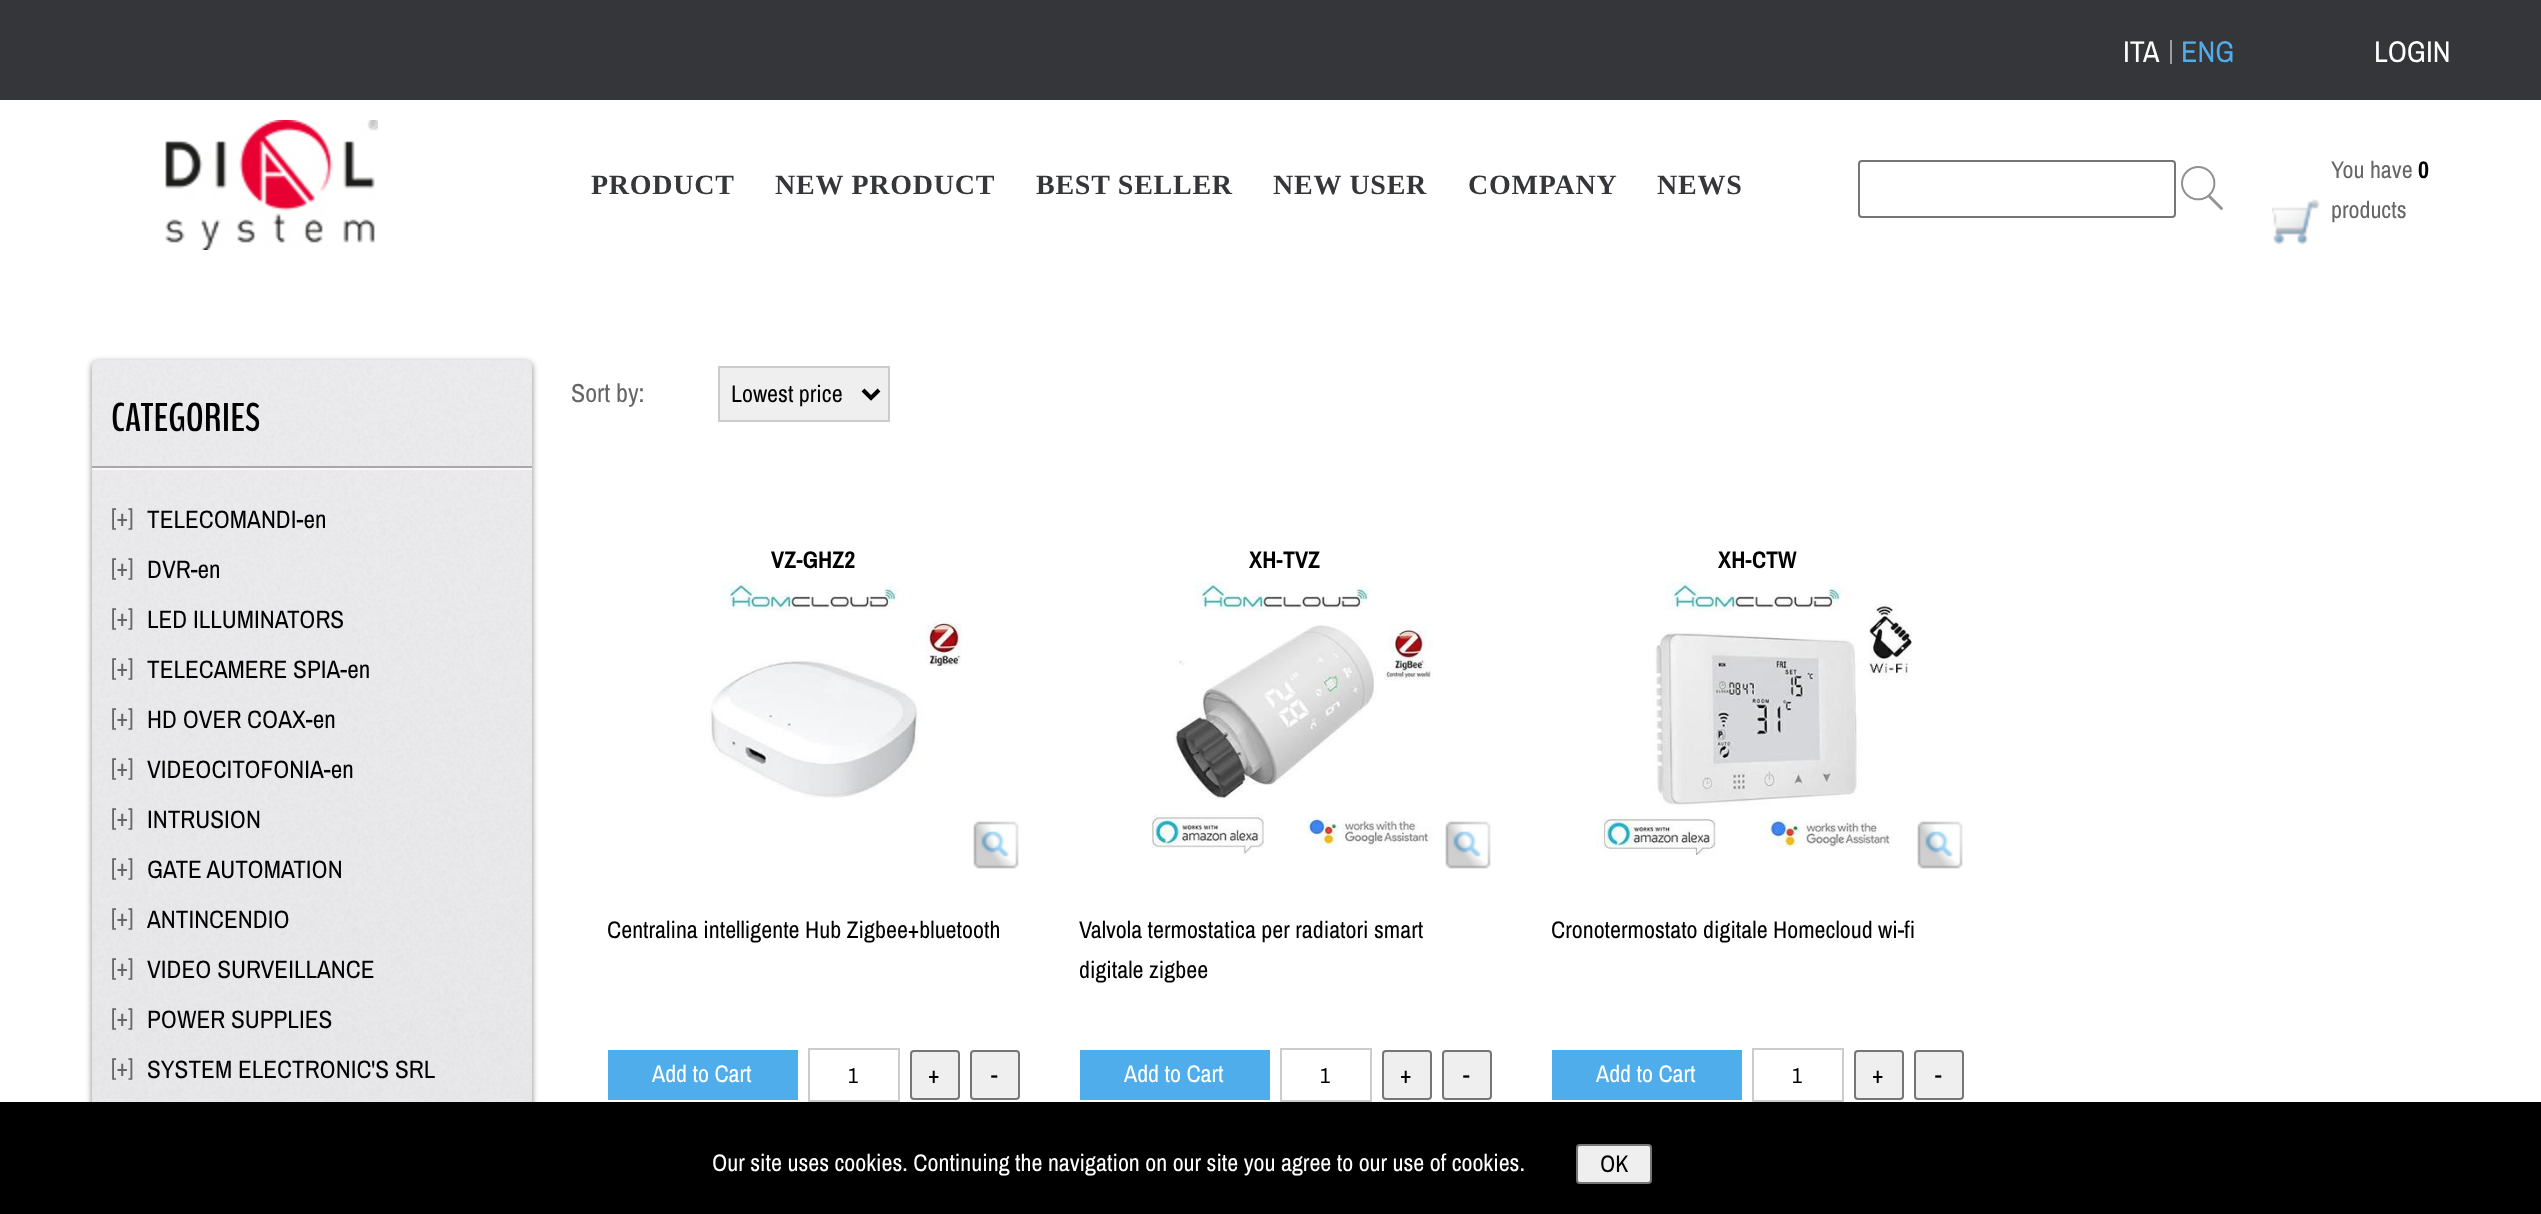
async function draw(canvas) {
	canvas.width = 2541;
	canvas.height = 1214;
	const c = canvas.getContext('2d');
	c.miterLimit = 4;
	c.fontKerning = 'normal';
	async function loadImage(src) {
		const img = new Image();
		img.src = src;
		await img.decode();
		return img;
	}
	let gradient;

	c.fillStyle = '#fff';
	c.fillRect(0, 0, 2541, 1214);
	gradient = c.createLinearGradient(-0.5, 72, 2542, 28);
	gradient.addColorStop(1, '#353639');
	gradient.addColorStop(1, '#381938');
	c.fillStyle = gradient;
	c.fillRect(0, 0, 2541, 100);
	c.fillStyle = '#9e9e9e';
	c.fillRect(2170, 40, 2, 24);
	c.font = '30px Archivo Narrow';
	c.fillStyle = '#fff';
	c.fillText('ITA', 2123, 62);
	c.fillStyle = '#50adeb';
	c.fillText('ENG', 2181, 62);
	c.fillStyle = '#fff';
	c.fillText('LOGIN', 2374, 62);
	c.drawImage(await loadImage('img1.png'), 165, 120, 213, 130);
	c.letterSpacing = '0.75px';
	c.font = 'bold 28px Liberation Serif';
	c.fillStyle = '#353639';
	for (const [text, x, y] of [
		['PRODUCT', 591, 194],
		['NEW PRODUCT', 775, 194],
		['BEST SELLER', 1036, 194],
		['NEW USER', 1273, 194],
		['COMPANY', 1468, 194],
		['NEWS', 1657, 194],
	]) {
		c.fillText(text, x, y);
	}
	c.beginPath();
	c.roundRect(1859, 161, 316, 56, 3);
	c.strokeStyle = '#767676';
	c.lineWidth = 2;
	c.stroke();
	c.drawImage(await loadImage('img2.png'), 2181, 166, 42, 44);
	c.drawImage(await loadImage('img3.png'), 2272, 199, 48, 46);
	c.letterSpacing = '0px';
	c.font = '24px Archivo Narrow';
	c.fillStyle = '#666';
	c.fillText('You have', 2331, 178);
	c.font = 'bold 24px Archivo Narrow';
	c.fillStyle = '#000';
	c.fillText('0', 2418, 178);
	c.font = '24px Archivo Narrow';
	c.fillStyle = '#666';
	c.fillText('products', 2331, 218);
	c.fillStyle = '#00000080';
	c.filter = 'blur(3px)';
	c.beginPath();
	c.roundRect(92, 362, 440, 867, 6);
	c.fill();
	c.filter = 'none';
	c.fillStyle = '#e6e6e6';
	c.beginPath();
	c.roundRect(92, 360, 440, 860, 6);
	c.fill();
	c.drawImage(await loadImage('img4.png'), 92, 360, 440, 742);
	c.font = 'bold 40px BenchNine';
	c.fillStyle = '#000';
	c.fillText('CATEGORIES', 111, 431);
	c.fillStyle = '#aaa7aa';
	c.fillRect(92, 466, 440, 2);
	c.fillStyle = '#faf5fa';
	c.fillRect(92, 468, 440, 2);
	c.font = '24px Archivo Narrow';
	c.fillStyle = '#666';
	c.fillText('[+]', 111, 526);
	c.font = '25.25px Archivo Narrow';
	c.fillStyle = '#000';
	c.fillText('TELECOMANDI-en', 147, 528);
	c.font = '24px Archivo Narrow';
	c.fillStyle = '#666';
	c.fillText('[+]', 111, 576);
	c.font = '25.25px Archivo Narrow';
	c.fillStyle = '#000';
	c.fillText('DVR-en', 147, 578);
	c.font = '24px Archivo Narrow';
	c.fillStyle = '#666';
	c.fillText('[+]', 111, 626);
	c.font = '25.25px Archivo Narrow';
	c.fillStyle = '#000';
	c.fillText('LED ILLUMINATORS', 147, 628);
	c.font = '24px Archivo Narrow';
	c.fillStyle = '#666';
	c.fillText('[+]', 111, 676);
	c.font = '25.25px Archivo Narrow';
	c.fillStyle = '#000';
	c.fillText('TELECAMERE SPIA-en', 147, 678);
	c.font = '24px Archivo Narrow';
	c.fillStyle = '#666';
	c.fillText('[+]', 111, 726);
	c.font = '25.25px Archivo Narrow';
	c.fillStyle = '#000';
	c.fillText('HD OVER COAX-en', 147, 728);
	c.font = '24px Archivo Narrow';
	c.fillStyle = '#666';
	c.fillText('[+]', 111, 776);
	c.font = '25.25px Archivo Narrow';
	c.fillStyle = '#000';
	c.fillText('VIDEOCITOFONIA-en', 147, 778);
	c.font = '24px Archivo Narrow';
	c.fillStyle = '#666';
	c.fillText('[+]', 111, 826);
	c.font = '25.25px Archivo Narrow';
	c.fillStyle = '#000';
	c.fillText('INTRUSION', 147, 828);
	c.font = '24px Archivo Narrow';
	c.fillStyle = '#666';
	c.fillText('[+]', 111, 876);
	c.font = '25.25px Archivo Narrow';
	c.fillStyle = '#000';
	c.fillText('GATE AUTOMATION', 147, 878);
	c.font = '24px Archivo Narrow';
	c.fillStyle = '#666';
	c.fillText('[+]', 111, 926);
	c.font = '25.25px Archivo Narrow';
	c.fillStyle = '#000';
	c.fillText('ANTINCENDIO', 147, 928);
	c.font = '24px Archivo Narrow';
	c.fillStyle = '#666';
	c.fillText('[+]', 111, 976);
	c.font = '25.25px Archivo Narrow';
	c.fillStyle = '#000';
	c.fillText('VIDEO SURVEILLANCE', 147, 978);
	c.font = '24px Archivo Narrow';
	c.fillStyle = '#666';
	c.fillText('[+]', 111, 1026);
	c.font = '25.25px Archivo Narrow';
	c.fillStyle = '#000';
	c.fillText('POWER SUPPLIES', 147, 1028);
	c.font = '24px Archivo Narrow';
	c.fillStyle = '#666';
	c.fillText('[+]', 111, 1076);
	c.font = '25.25px Archivo Narrow';
	c.fillStyle = '#000';
	c.fillText('SYSTEM ELECTRONIC\'S SRL', 147, 1078);
	c.font = '26px Archivo Narrow';
	c.fillStyle = '#666';
	c.fillText('Sort by:', 571, 402);
	c.fillStyle = '#efefef';
	c.beginPath();
	c.rect(719, 367, 170, 54);
	c.fill();
	c.strokeStyle = '#ccc';
	c.stroke();
	c.beginPath();
	c.moveTo(863, 390);
	c.lineTo(871, 398);
	c.lineTo(879, 390);
	c.strokeStyle = '#000';
	c.lineWidth = 4;
	c.stroke();
	c.font = '24px Archivo Narrow';
	c.fillStyle = '#000';
	c.fillText('Lowest price', 731, 402);
	c.font = 'bold 24px Archivo Narrow';
	c.fillText('VZ-GHZ2', 771, 568);
	c.drawImage(await loadImage('img5.png'), 709, 582, 253, 216);
	c.drawImage(await loadImage('img6.png'), 973, 821, 46, 48);
	c.font = '24px Archivo Narrow';
	c.fillText('Centralina intelligente Hub Zigbee+bluetooth', 607, 938);
	c.fillStyle = '#50adeb';
	c.fillRect(608, 1050, 190, 50);
	c.fillStyle = '#fff';
	c.fillText('Add to Cart', 652, 1082);
	c.strokeStyle = '#ccc';
	c.lineWidth = 2;
	c.strokeRect(809, 1049, 90, 52);
	c.font = '22px Archivo Narrow';
	c.fillStyle = '#000';
	c.fillText('1', 848, 1083);
	c.fillStyle = '#efefef';
	c.beginPath();
	c.roundRect(911, 1051, 48, 48, 3);
	c.fill();
	c.strokeStyle = '#767676';
	c.stroke();
	c.font = '24px Archivo Narrow';
	c.fillStyle = '#000';
	c.fillText('+', 928, 1083);
	c.fillStyle = '#efefef';
	c.beginPath();
	c.roundRect(971, 1051, 48, 48, 3);
	c.fill();
	c.stroke();
	c.fillStyle = '#000';
	c.fillText('-', 991, 1083);
	c.font = 'bold 24px Archivo Narrow';
	c.fillText('XH-TVZ', 1249, 568);
	c.drawImage(await loadImage('img7.png'), 1151, 582, 282, 273);
	c.drawImage(await loadImage('img6.png'), 1445, 821, 46, 48);
	c.font = '24px Archivo Narrow';
	c.fillText('Valvola termostatica per radiatori smart', 1079, 938);
	c.fillText('digitale zigbee', 1079, 978);
	c.fillStyle = '#50adeb';
	c.fillRect(1080, 1050, 190, 50);
	c.fillStyle = '#fff';
	c.fillText('Add to Cart', 1124, 1082);
	c.strokeStyle = '#ccc';
	c.strokeRect(1281, 1049, 90, 52);
	c.font = '22px Archivo Narrow';
	c.fillStyle = '#000';
	c.fillText('1', 1320, 1083);
	c.fillStyle = '#efefef';
	c.beginPath();
	c.roundRect(1383, 1051, 48, 48, 3);
	c.fill();
	c.strokeStyle = '#767676';
	c.stroke();
	c.font = '24px Archivo Narrow';
	c.fillStyle = '#000';
	c.fillText('+', 1400, 1083);
	c.fillStyle = '#efefef';
	c.beginPath();
	c.roundRect(1443, 1051, 48, 48, 3);
	c.fill();
	c.stroke();
	c.fillStyle = '#000';
	c.fillText('-', 1463, 1083);
	c.font = 'bold 24px Archivo Narrow';
	c.fillText('XH-CTW', 1718, 568);
	c.drawImage(await loadImage('img8.png'), 1596, 582, 316, 273);
	c.drawImage(await loadImage('img6.png'), 1917, 821, 46, 48);
	c.font = '24px Archivo Narrow';
	c.fillText('Cronotermostato digitale Homecloud wi-fi', 1551, 938);
	c.fillStyle = '#50adeb';
	c.fillRect(1552, 1050, 190, 50);
	c.fillStyle = '#fff';
	c.fillText('Add to Cart', 1596, 1082);
	c.strokeStyle = '#ccc';
	c.strokeRect(1753, 1049, 90, 52);
	c.font = '22px Archivo Narrow';
	c.fillStyle = '#000';
	c.fillText('1', 1792, 1083);
	c.fillStyle = '#efefef';
	c.beginPath();
	c.roundRect(1855, 1051, 48, 48, 3);
	c.fill();
	c.strokeStyle = '#767676';
	c.stroke();
	c.font = '24px Archivo Narrow';
	c.fillStyle = '#000';
	c.fillText('+', 1872, 1083);
	c.fillStyle = '#efefef';
	c.beginPath();
	c.roundRect(1915, 1051, 48, 48, 3);
	c.fill();
	c.stroke();
	c.fillStyle = '#000';
	c.fillText('-', 1935, 1083);
	c.fillRect(0, 1102, 2541, 112);
	c.fillStyle = '#fff';
	c.fillText('Our site uses cookies. Continuing the navigation on our site you agree to our use of cookies.', 712, 1171);
	c.fillStyle = '#efefef';
	c.beginPath();
	c.roundRect(1577, 1145, 74, 38, 3);
	c.fill();
	c.stroke();
	c.fillStyle = '#000';
	c.fillText('OK', 1600, 1172);
}

draw(document.querySelector('canvas'));
